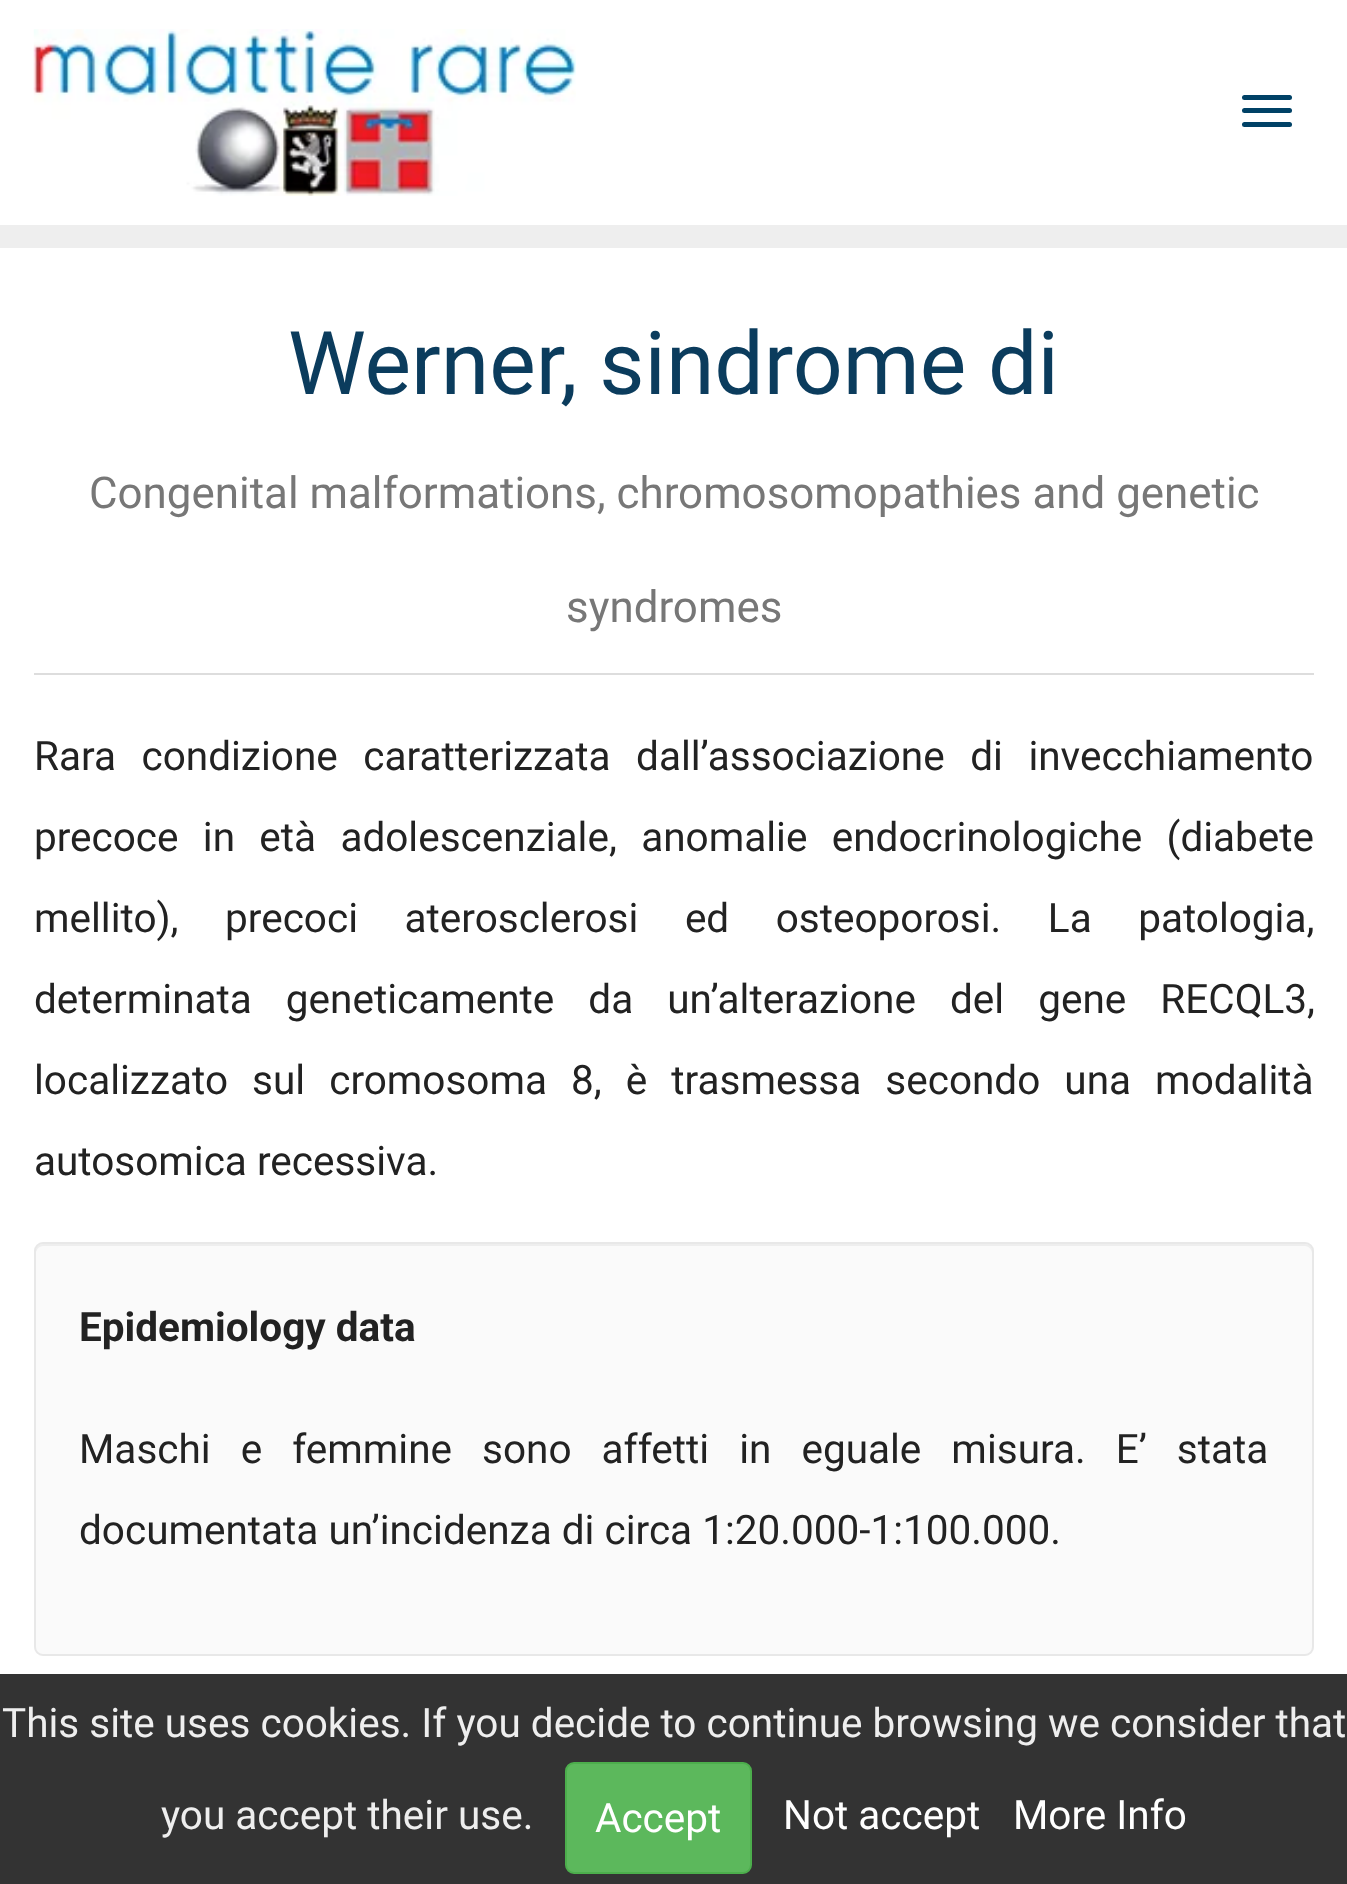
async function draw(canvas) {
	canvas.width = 1347;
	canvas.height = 1884;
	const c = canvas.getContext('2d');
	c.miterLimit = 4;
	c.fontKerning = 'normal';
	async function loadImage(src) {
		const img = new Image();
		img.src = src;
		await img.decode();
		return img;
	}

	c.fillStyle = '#fff';
	c.fillRect(0, 0, 1347, 1884);
	c.fillStyle = '#eee';
	c.fillRect(0, 225, 1347, 23);
	c.drawImage(await loadImage('img1.png'), 33, 29, 543, 167);
	c.fillStyle = '#004166';
	c.beginPath();
	c.roundRect(1242, 95, 50, 5, 2.5);
	c.fill();
	c.beginPath();
	c.roundRect(1242, 108, 50, 5, 2.5);
	c.fill();
	c.beginPath();
	c.roundRect(1242, 122, 50, 5, 2.5);
	c.fill();
	c.fillStyle = '#ddd';
	c.fillRect(34, 673, 1280, 2);
	c.font = '87.75px Roboto';
	c.fillStyle = '#0b3c5d';
	c.fillText('Werner, sindrome di', 288, 394);
	c.font = '43.9px Roboto';
	c.fillStyle = '#777';
	c.fillText('Congenital malformations, chromosomopathies and genetic', 89, 508);
	c.fillText('syndromes', 566, 622);
	c.wordSpacing = '15.5px';
	c.font = '40.5px Roboto';
	c.fillStyle = '#222';
	c.fillText('Rara condizione caratterizzata dall’associazione di invecchiamento', 34, 770);
	c.wordSpacing = '14.25px';
	c.fillText('precoce in età adolescenziale, anomalie endocrinologiche (diabete', 34, 851);
	c.wordSpacing = '36.5px';
	c.fillText('mellito), precoci aterosclerosi ed osteoporosi. La patologia,', 34, 932);
	c.wordSpacing = '24px';
	c.fillText('determinata geneticamente da un’alterazione del gene RECQL3,', 34, 1013);
	c.wordSpacing = '14px';
	c.fillText('localizzato sul cromosoma 8, è trasmessa secondo una modalità', 34, 1094);
	c.wordSpacing = '0px';
	c.fillText('autosomica recessiva.', 34, 1175);
	c.fillStyle = '#fafafa';
	c.beginPath();
	c.roundRect(34, 1242, 1280, 414, 9);
	c.fill();
	c.fillStyle = '#eee';
	c.beginPath();
	c.moveTo(43, 1246);
	c.lineTo(1305, 1246);
	c.bezierCurveTo(1309, 1246, 1312, 1250, 1312, 1253);
	c.lineTo(1312, 1251);
	c.bezierCurveTo(1312, 1247, 1309, 1244, 1305, 1244);
	c.lineTo(43, 1244);
	c.bezierCurveTo(39, 1244, 36, 1247, 36, 1251);
	c.lineTo(36, 1253);
	c.bezierCurveTo(36, 1250, 39, 1246, 43, 1246);
	c.closePath();
	c.fill();
	c.beginPath();
	c.roundRect(35, 1243, 1278, 412, 8);
	c.strokeStyle = '#e8e8e8';
	c.lineWidth = 2;
	c.stroke();
	c.font = 'bold 40.5px Roboto';
	c.fillStyle = '#222';
	c.fillText('Epidemiology data', 79, 1341);
	c.wordSpacing = '20px';
	c.font = '40.5px Roboto';
	c.fillText('Maschi e femmine sono affetti in eguale misura. E’ stata', 79, 1463);
	c.wordSpacing = '0px';
	c.fillText('documentata un’incidenza di circa 1:20.000-1:100.000.', 79, 1544);
	c.fillStyle = '#333';
	c.fillRect(0, 1674, 1347, 210);
	c.fillStyle = '#eee';
	c.fillText('This site uses cookies. If you decide to continue browsing we consider that', 2, 1737);
	c.fillText('you accept their use.', 161, 1829);
	c.fillStyle = '#5cb85c';
	c.beginPath();
	c.roundRect(566, 1763, 185, 110, 8);
	c.fill();
	c.strokeStyle = '#4cae4c';
	c.stroke();
	c.fillStyle = '#fff';
	for (const [text, x, y] of [
		['Accept', 595, 1832],
		['Not accept', 783, 1829],
		['More Info', 1013, 1829],
	]) {
		c.fillText(text, x, y);
	}
}

draw(document.querySelector('canvas'));
